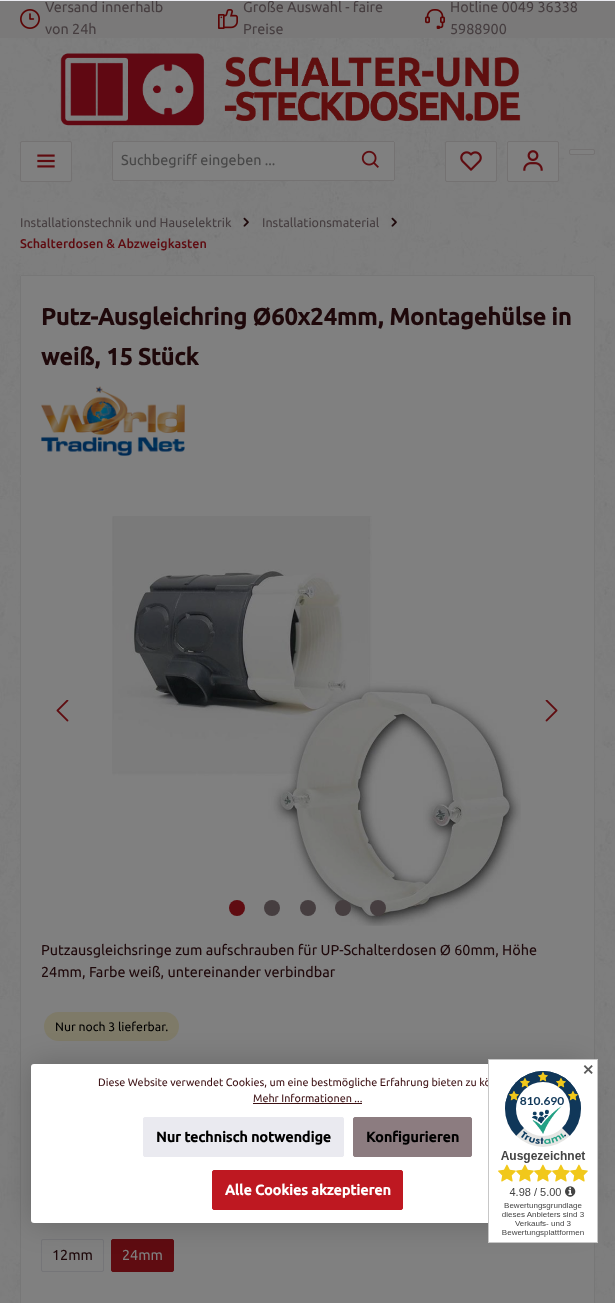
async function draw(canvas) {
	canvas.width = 615;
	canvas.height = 1303;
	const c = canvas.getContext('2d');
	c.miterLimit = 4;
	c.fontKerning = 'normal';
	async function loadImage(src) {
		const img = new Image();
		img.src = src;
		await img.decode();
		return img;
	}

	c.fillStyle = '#fff';
	c.fillRect(0, 0, 615, 1303);
	c.drawImage(await loadImage('img1.png'), 0, 202, 615, 1101);
	c.fillStyle = '#7a7979';
	c.fillRect(0, 1, 615, 37);
	c.drawImage(await loadImage('img2.png'), 20, 9, 20, 20);
	c.font = '14.4px Ubuntu';
	c.fillStyle = '#463e40';
	c.fillText('Versand innerhalb', 45, 12);
	c.fillText('von 24h', 45, 34);
	c.drawImage(await loadImage('img3.png'), 218, 9, 20, 20);
	c.fillText('Große Auswahl - faire', 243, 12);
	c.fillText('Preise', 243, 34);
	c.drawImage(await loadImage('img4.png'), 425, 9, 20, 20);
	c.fillText('Hotline 0049 36338', 450, 12);
	c.fillText('5988900', 450, 34);
	c.drawImage(await loadImage('img5.png'), 0, 38, 615, 164);
	c.drawImage(await loadImage('img6.png'), 60, 53, 461, 73);
	c.fillStyle = '#808080';
	c.beginPath();
	c.roundRect(20.5, 141.5, 51, 40, 1.5);
	c.fill();
	c.strokeStyle = '#747272';
	c.stroke();
	c.drawImage(await loadImage('img7.png'), 37, 154, 18, 14);
	c.beginPath();
	c.roundRect(112.5, 141.5, 236, 39, [1.5, 0, 0, 1.5]);
	c.fill();
	c.stroke();
	c.fillStyle = '#474747';
	c.fillText('Suchbegriff eingeben ...', 121, 165);
	c.fillStyle = '#808080';
	c.beginPath();
	c.roundRect(348, 141, 47, 40, [0, 2, 2, 0]);
	c.fill();
	for (const [x, y, w, h, color] of [
		[348, 141, 46, 1, '#747272'],
		[394, 142, 1, 38, '#747272'],
		[348, 180, 46, 1, '#747272'],
	]) {
		c.fillStyle = color;
		c.fillRect(x, y, w, h);
	}
	c.drawImage(await loadImage('img8.png'), 361, 150, 18, 18);
	c.fillStyle = '#808080';
	c.beginPath();
	c.roundRect(445.5, 141.5, 51, 40, 1.5);
	c.fill();
	c.stroke();
	c.drawImage(await loadImage('img9.png'), 460, 151, 22, 20);
	c.beginPath();
	c.roundRect(507.5, 141.5, 51, 40, 1.5);
	c.fill();
	c.stroke();
	c.drawImage(await loadImage('img10.png'), 523, 150, 20, 21);
	c.beginPath();
	c.roundRect(569.5, 149.5, 25, 5, 1.5);
	c.fill();
	c.stroke();
	c.font = '12.6px Ubuntu';
	c.fillStyle = '#463e40';
	c.fillText('Installationstechnik und Hauselektrik', 20, 227);
	c.drawImage(await loadImage('img11.png'), 243, 217, 6, 10);
	c.fillText('Installationsmaterial', 262, 227);
	c.drawImage(await loadImage('img12.png'), 391, 217, 6, 10);
	c.font = '500 12.6px Ubuntu';
	c.fillStyle = '#5f0c11';
	c.fillText('Schalterdosen & Abzweigkasten', 20, 248);
	c.fillStyle = '#808080';
	c.beginPath();
	c.roundRect(20, 275, 575, 201, 2);
	c.fill();
	for (const [x, y, w, h, color] of [
		[21, 275, 573, 1, '#777'],
		[594, 276, 1, 199, '#777'],
		[20, 276, 1, 199, '#777'],
	]) {
		c.fillStyle = color;
		c.fillRect(x, y, w, h);
	}
	c.font = 'bold 23.5px Ubuntu';
	c.fillStyle = '#1e080a';
	c.fillText('Putz-Ausgleichring Ø60x24mm, Montagehülse in', 41, 325);
	c.fillText('weiß, 15 Stück', 41, 365);
	c.drawImage(await loadImage('img13.png'), 41, 386, 144, 70);
	c.fillStyle = '#808080';
	c.beginPath();
	c.roundRect(20, 476, 575, 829, 2);
	c.fill();
	c.fillStyle = '#777';
	c.fillRect(594, 477, 1, 826);
	c.fillRect(20, 477, 1, 826);
	c.drawImage(await loadImage('img14.png'), 112, 516, 409, 410);
	c.drawImage(await loadImage('img15.png'), 56, 700, 13, 22);
	c.drawImage(await loadImage('img16.png'), 545, 700, 13, 22);
	c.fillStyle = '#5f0c11';
	c.beginPath();
	c.arc(237, 908, 8, 0, 2 * Math.PI);
	c.fill();
	c.fillStyle = '#463e40';
	c.beginPath();
	c.arc(272, 908, 8, 0, 2 * Math.PI);
	c.fill();
	c.beginPath();
	c.arc(308, 908, 8, 0, 2 * Math.PI);
	c.fill();
	c.beginPath();
	c.arc(343, 908, 8, 0, 2 * Math.PI);
	c.fill();
	c.beginPath();
	c.arc(378, 908, 8, 0, 2 * Math.PI);
	c.fill();
	c.font = '14.4px Ubuntu';
	c.fillStyle = '#1e080a';
	c.fillText('Putzausgleichsringe zum aufschrauben für UP-Schalterdosen Ø 60mm, Höhe', 41, 955);
	c.fillText('24mm, Farbe weiß, untereinander verbindbar', 41, 977);
	c.fillStyle = '#7e7a68';
	c.beginPath();
	c.roundRect(44, 1012, 135, 29, 14.5);
	c.fill();
	c.font = '12.25px Ubuntu';
	c.fillStyle = '#000';
	c.fillText('Nur noch 3 lieferbar.', 55, 1031);
	c.beginPath();
	c.roundRect(41.5, 1239.5, 62, 32, 1.5);
	c.strokeStyle = '#757578';
	c.stroke();
	c.font = '14.4px Ubuntu';
	c.fillStyle = '#1e080a';
	c.fillText('12mm', 52, 1260);
	c.fillStyle = '#5f0c11';
	c.beginPath();
	c.roundRect(111.5, 1239.5, 62, 32, 1.5);
	c.fill();
	c.strokeStyle = '#5f0c11';
	c.stroke();
	c.fillStyle = '#808080';
	c.fillText('24mm', 122, 1260);
	c.fillStyle = '#00000033';
	c.filter = 'blur(15px)';
	c.beginPath();
	c.roundRect(31, 1064, 553, 159, 3);
	c.fill();
	c.filter = 'none';
	c.fillStyle = '#fff';
	c.beginPath();
	c.roundRect(31, 1064, 553, 159, 3);
	c.fill();
	c.font = '10.8px Ubuntu';
	c.fillStyle = '#3c1013';
	c.fillText('Diese Website verwendet Cookies, um eine bestmögliche Erfahrung bieten zu kö', 98, 1086);
	c.drawImage(await loadImage('img17.png'), 488, 1059, 110, 184);
	c.font = 'bold 14.4px DejaVu Sans';
	c.fillStyle = '#595959';
	c.fillText('✕', 582, 1075);
	c.fillStyle = '#eaeaf0';
	c.fillRect(0, 0, 615, 1);
	c.font = '10.8px Ubuntu';
	c.fillStyle = '#3c1013';
	c.fillText('Mehr Informationen ...', 253, 1102);
	c.fillRect(253, 1103, 109, 1);
	c.fillStyle = '#eaeaf0';
	c.beginPath();
	c.roundRect(143.5, 1117.5, 200, 39, 1.5);
	c.fill();
	c.strokeStyle = '#eaeaf0';
	c.stroke();
	c.font = 'bold 14.4px Ubuntu';
	c.fillStyle = '#000';
	c.fillText('Nur technisch notwendige', 156, 1142);
	c.fillStyle = '#8c7c80';
	c.beginPath();
	c.roundRect(353.5, 1117.5, 118, 39, 1.5);
	c.fill();
	c.strokeStyle = '#8c7c80';
	c.stroke();
	c.fillStyle = '#000';
	c.fillText('Konfigurieren', 366, 1142);
	c.fillStyle = '#be1821';
	c.beginPath();
	c.roundRect(212.5, 1170.5, 190, 39, 1.5);
	c.fill();
	c.strokeStyle = '#be1821';
	c.stroke();
	c.fillStyle = '#fff';
	c.fillText('Alle Cookies akzeptieren', 225, 1195);
}

draw(document.querySelector('canvas'));
